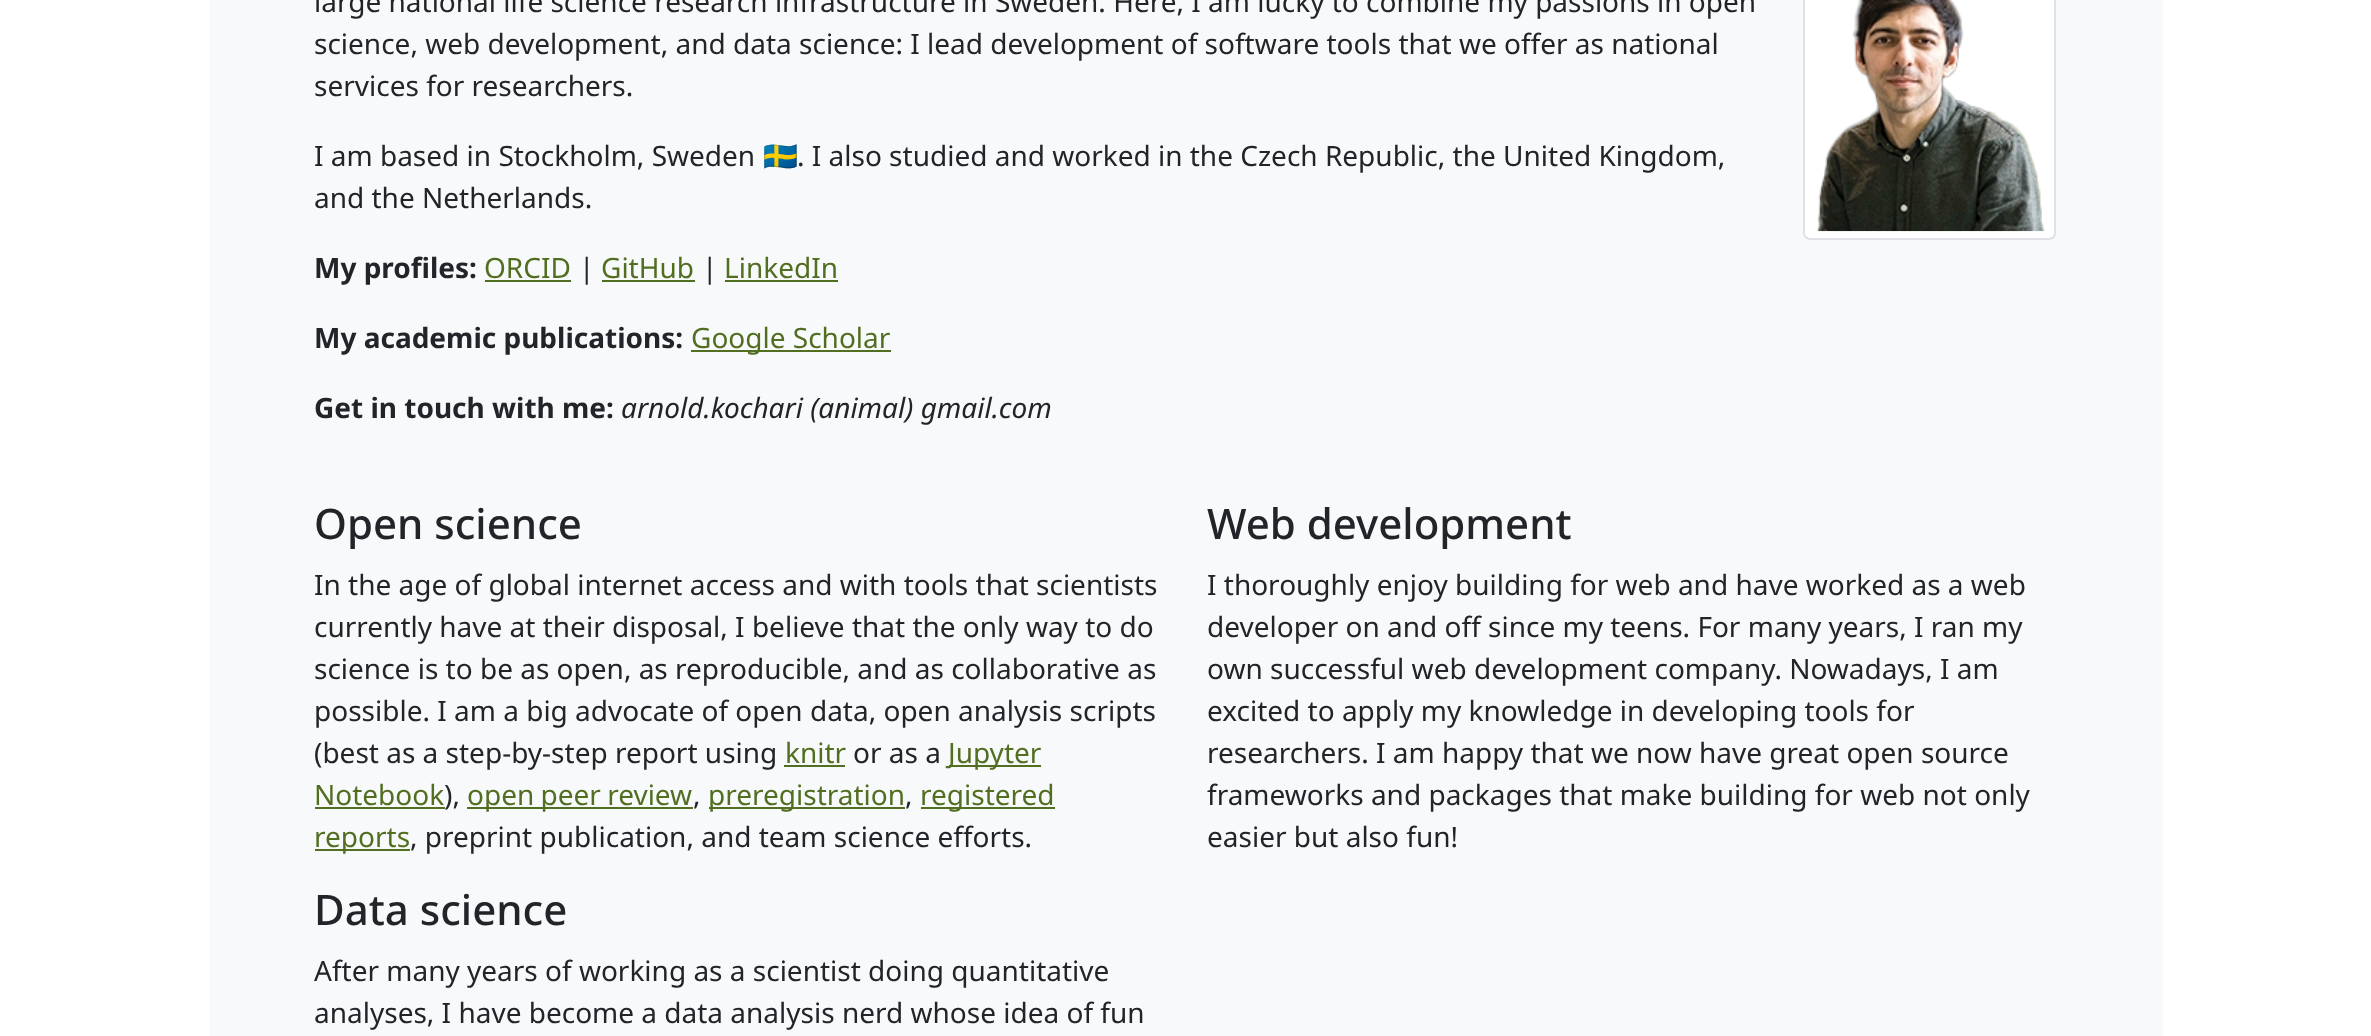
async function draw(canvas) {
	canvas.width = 2371;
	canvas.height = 1036;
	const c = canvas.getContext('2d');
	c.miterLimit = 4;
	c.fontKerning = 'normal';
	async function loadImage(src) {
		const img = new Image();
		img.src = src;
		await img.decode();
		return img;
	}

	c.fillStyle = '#fff';
	c.fillRect(0, 0, 2371, 1036);
	c.fillStyle = '#f8f9fa';
	c.fillRect(210, 0, 1953, 1036);
	c.font = '28px Noto Sans';
	c.fillStyle = '#212529';
	for (const [text, x, y] of [
		['large national life science research infrastructure in Sweden. Here, I am lucky to combine my passions in open', 314, 12],
		['science, web development, and data science: I lead development of software tools that we offer as national', 314, 54],
		['services for researchers.', 314, 96],
		['I am based in Stockholm, Sweden', 314, 166],
	]) {
		c.fillText(text, x, y);
	}
	c.font = '28px Noto Color Emoji';
	c.fillText('🇸🇪', 763, 166);
	c.font = '28px Noto Sans';
	c.fillText('. I also studied and worked in the Czech Republic, the United Kingdom,', 797, 166);
	c.fillText('and the Netherlands.', 314, 208);
	c.font = 'bold 28px Noto Sans';
	c.fillText('My profiles:', 314, 278);
	c.font = '28px Noto Sans';
	c.fillStyle = '#526e21';
	c.fillText('ORCID', 484, 278);
	c.fillRect(485, 280, 86, 2);
	c.fillStyle = '#212529';
	c.fillText('|', 579, 278);
	c.fillStyle = '#526e21';
	c.fillText('GitHub', 601, 278);
	c.fillRect(602, 280, 93, 2);
	c.fillStyle = '#212529';
	c.fillText('|', 702, 278);
	c.fillStyle = '#526e21';
	c.fillText('LinkedIn', 724, 278);
	c.fillRect(725, 280, 113, 2);
	c.font = 'bold 28px Noto Sans';
	c.fillStyle = '#212529';
	c.fillText('My academic publications:', 314, 348);
	c.fillStyle = '#526e21';
	c.fillRect(691, 350, 200, 2);
	c.font = '28px Noto Sans';
	c.fillText('Google Scholar', 691, 348);
	c.font = 'bold 28px Noto Sans';
	c.fillStyle = '#212529';
	c.fillText('Get in touch with me:', 314, 418);
	c.font = 'italic 28px Noto Sans';
	c.fillText('arnold.kochari (animal) gmail.com', 621, 418);
	c.fillStyle = '#fff';
	c.beginPath();
	c.roundRect(1804, -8, 251, 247, 6);
	c.fill();
	c.strokeStyle = '#dee2e6';
	c.lineWidth = 2;
	c.stroke();
	c.drawImage(await loadImage('img1.png'), 1817, 0, 228, 232);
	c.font = '500 42px Noto Sans';
	c.fillStyle = '#212529';
	c.fillText('Open science', 314, 539);
	c.font = '28px Noto Sans';
	for (const [text, x, y] of [
		['In the age of global internet access and with tools that scientists', 314, 595],
		['currently have at their disposal, I believe that the only way to do', 314, 637],
		['science is to be as open, as reproducible, and as collaborative as', 314, 679],
		['possible. I am a big advocate of open data, open analysis scripts', 314, 721],
		['(best as a step-by-step report using', 314, 763],
	]) {
		c.fillText(text, x, y);
	}
	c.fillStyle = '#526e21';
	c.fillText('knitr', 785, 763);
	c.fillRect(784, 765, 61, 2);
	c.fillStyle = '#212529';
	c.fillText('or as a', 853, 763);
	c.fillStyle = '#526e21';
	c.fillRect(949, 765, 92, 2);
	c.fillText('Jupyter', 948, 763);
	c.fillText('Notebook', 314, 805);
	c.fillRect(315, 807, 130, 2);
	c.fillStyle = '#212529';
	c.fillText('),', 444, 805);
	c.fillStyle = '#526e21';
	c.fillRect(467, 807, 226, 2);
	c.wordSpacing = '-1px';
	c.fillText('open peer review', 467, 805);
	c.wordSpacing = '0px';
	c.fillStyle = '#212529';
	c.fillText(',', 693, 805);
	c.fillStyle = '#526e21';
	c.fillRect(709, 807, 196, 2);
	c.fillText('preregistration', 708, 805);
	c.fillStyle = '#212529';
	c.fillText(',', 905, 805);
	c.fillStyle = '#526e21';
	c.fillRect(921, 807, 134, 2);
	c.fillText('registered', 920, 805);
	c.fillRect(315, 849, 95, 2);
	c.fillText('reports', 314, 847);
	c.fillStyle = '#212529';
	c.fillText(', preprint publication, and team science efforts.', 410, 847);
	c.font = '500 42px Noto Sans';
	c.fillText('Web development', 1207, 539);
	c.font = '28px Noto Sans';
	for (const [text, x, y] of [
		['I thoroughly enjoy building for web and have worked as a web', 1207, 595],
		['developer on and off since my teens. For many years, I ran my', 1207, 637],
		['own successful web development company. Nowadays, I am', 1207, 679],
		['excited to apply my knowledge in developing tools for', 1207, 721],
		['researchers. I am happy that we now have great open source', 1207, 763],
		['frameworks and packages that make building for web not only', 1207, 805],
		['easier but also fun!', 1207, 847],
	]) {
		c.fillText(text, x, y);
	}
	c.font = '500 42px Noto Sans';
	c.fillText('Data science', 314, 925);
	c.font = '28px Noto Sans';
	c.fillText('After many years of working as a scientist doing quantitative', 314, 981);
	c.fillText('analyses, I have become a data analysis nerd whose idea of fun', 314, 1023);
}

draw(document.querySelector('canvas'));
